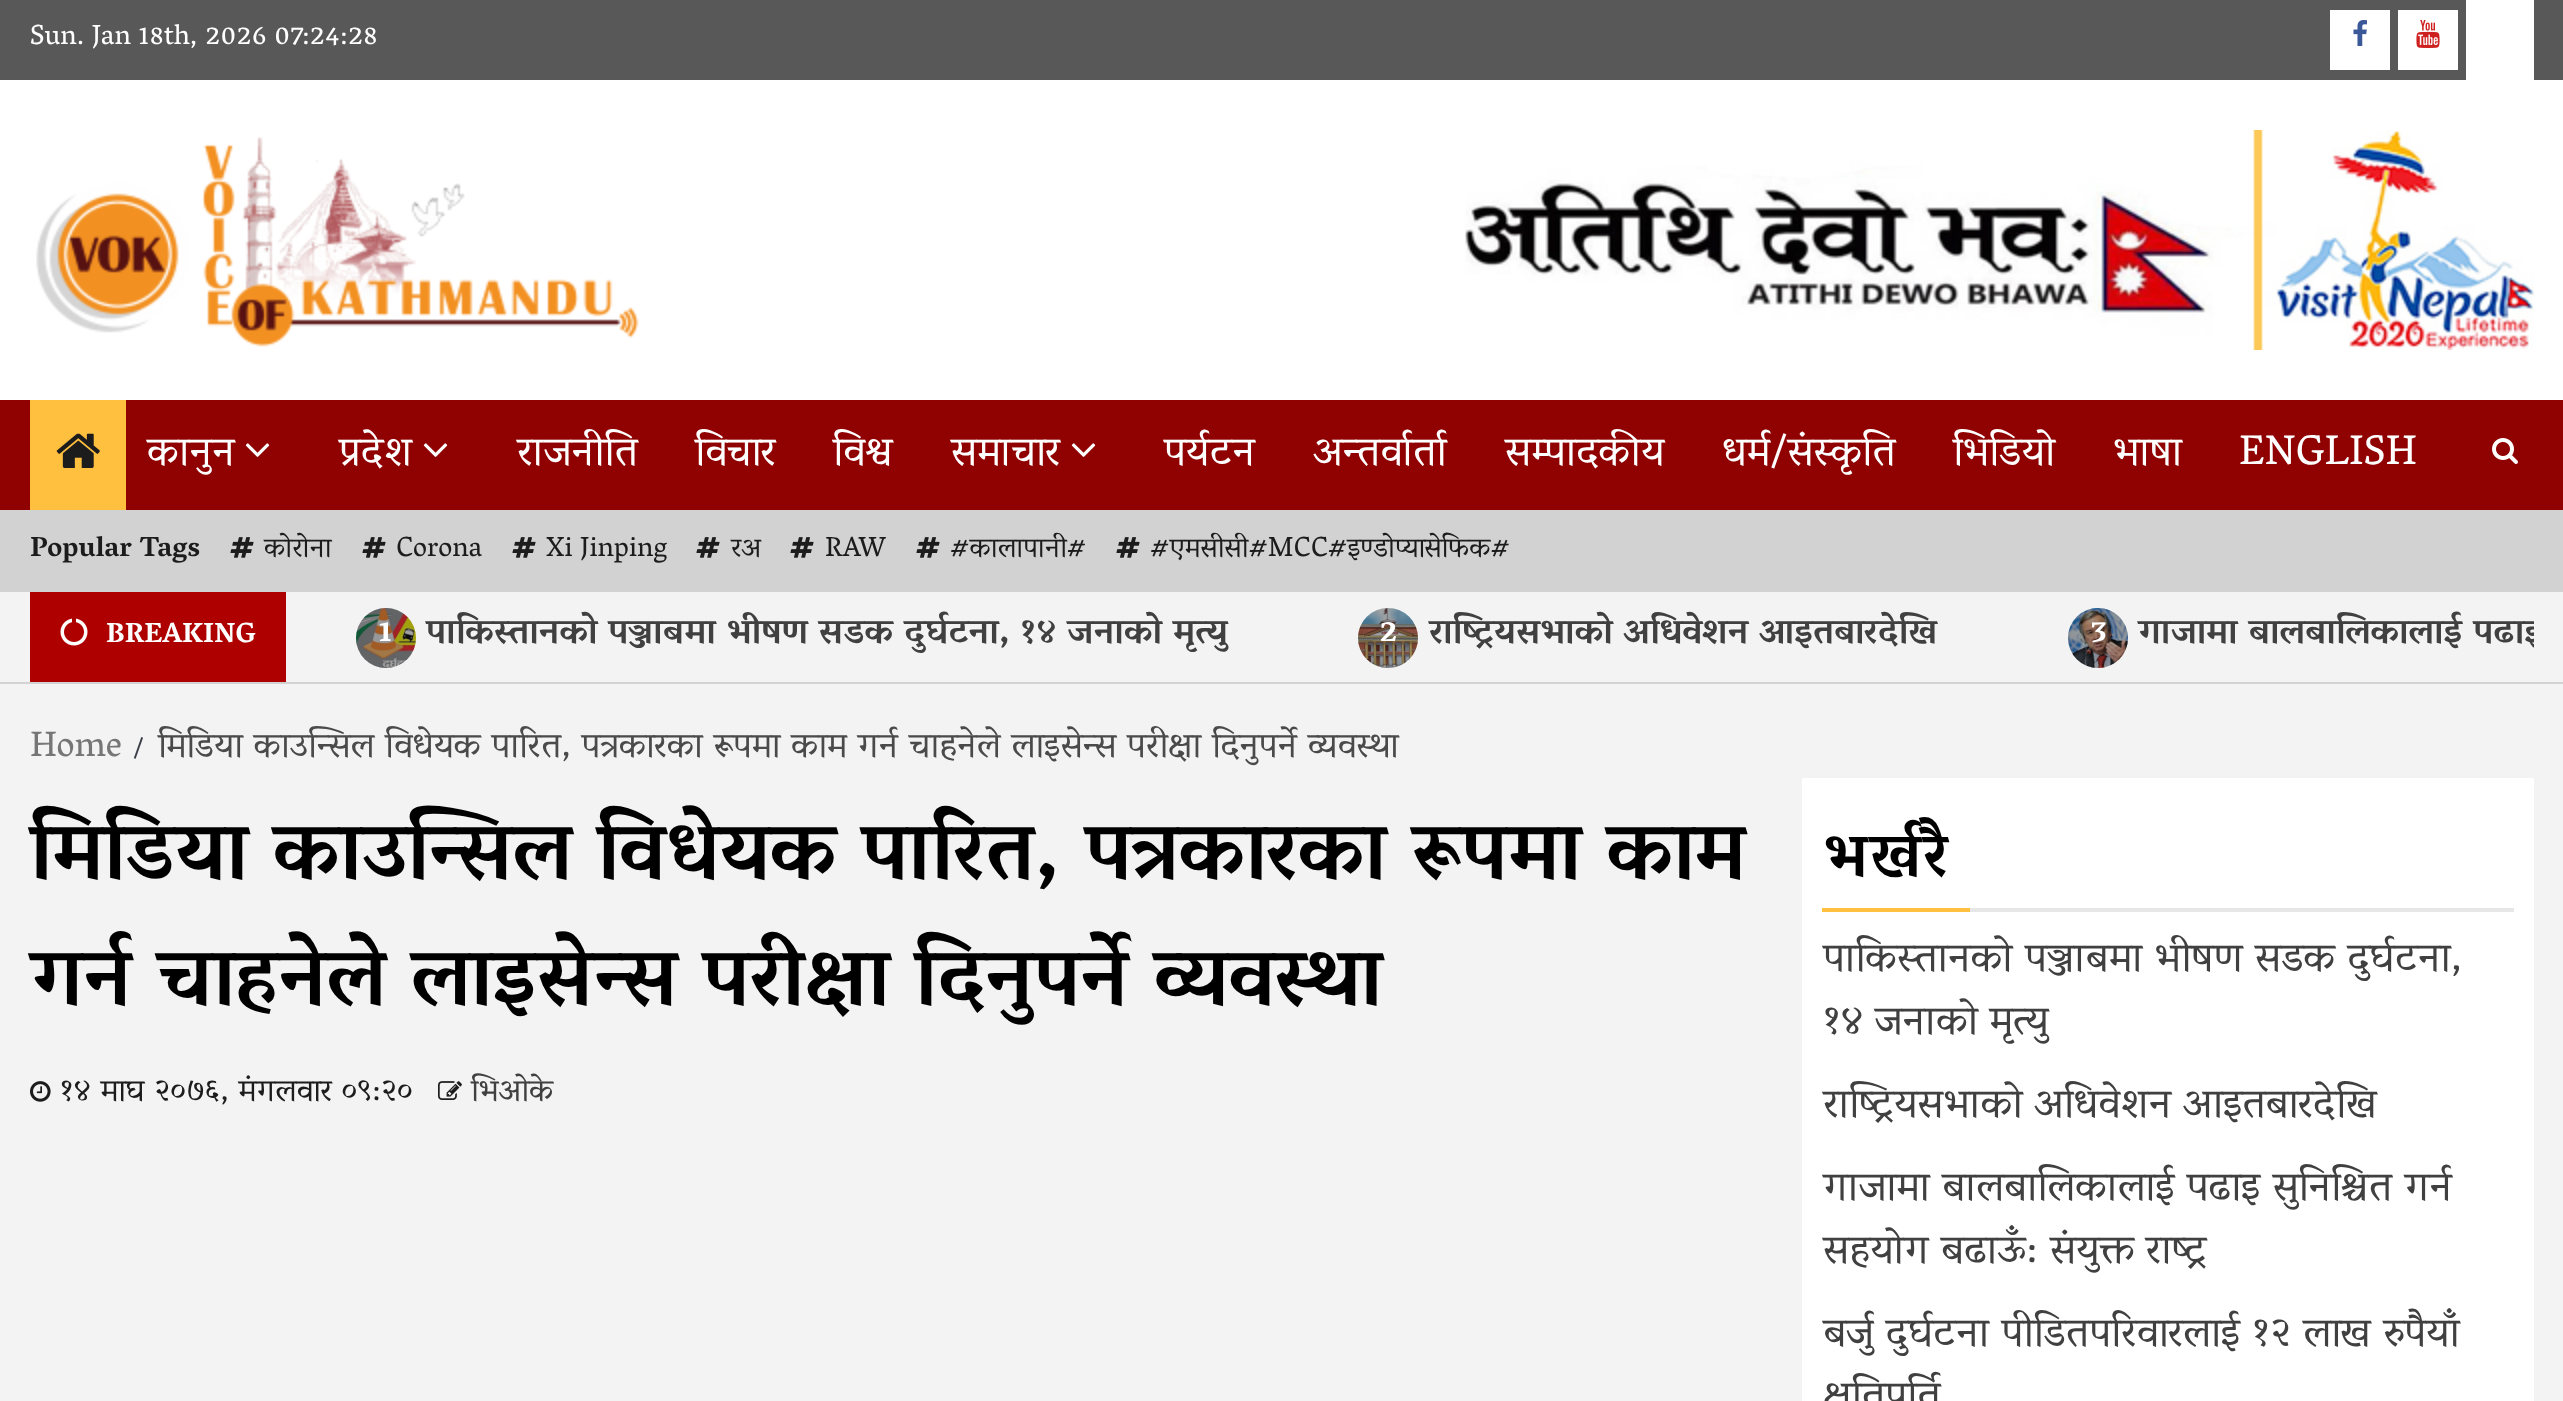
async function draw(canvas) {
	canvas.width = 2563;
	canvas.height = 1401;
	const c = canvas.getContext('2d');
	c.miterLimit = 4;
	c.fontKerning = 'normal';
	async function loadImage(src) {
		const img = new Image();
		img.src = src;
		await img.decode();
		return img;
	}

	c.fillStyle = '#f3f3f3';
	c.fillRect(0, 0, 2563, 1401);
	c.fillStyle = '#585858';
	c.fillRect(0, 0, 2563, 80);
	c.font = '28px Vesper Libre';
	c.fillStyle = '#fff';
	c.fillText('Sun. Jan 18th, 2026 07:24:28', 30, 44);
	c.fillRect(2330, 10, 60, 60);
	c.drawImage(await loadImage('img1.png'), 2353, 20, 14, 26);
	c.fillRect(2398, 10, 60, 60);
	c.drawImage(await loadImage('img2.png'), 2416, 20, 24, 28);
	c.fillRect(2466, 0, 68, 80);
	c.fillRect(0, 80, 2563, 320);
	c.drawImage(await loadImage('img3.png'), 36, 136, 603, 211);
	c.drawImage(await loadImage('img4.png'), 1465, 130, 1069, 220);
	c.fillStyle = '#900202';
	c.fillRect(0, 400, 2563, 110);
	c.fillStyle = '#ffbf3f';
	c.fillRect(30, 400, 96, 110);
	c.drawImage(await loadImage('img5.png'), 56, 433, 44, 35);
	c.font = '42px Vesper Libre';
	c.fillStyle = '#fff';
	c.fillText('कानुन', 147, 464);
	c.drawImage(await loadImage('img6.png'), 245, 443, 25, 14);
	c.fillText('प्रदेश', 339, 464);
	c.drawImage(await loadImage('img6.png'), 423, 443, 25, 14);
	for (const [text, x, y] of [
		['राजनीति', 517, 464],
		['विचार', 695, 464],
		['विश्व', 833, 464],
		['समाचार', 951, 464],
	]) {
		c.fillText(text, x, y);
	}
	c.drawImage(await loadImage('img6.png'), 1071, 443, 25, 14);
	for (const [text, x, y] of [
		['पर्यटन', 1164, 464],
		['अन्तर्वार्ता', 1313, 464],
		['सम्पादकीय', 1505, 464],
		['धर्म/संस्कृति', 1722, 464],
		['भिडियो', 1953, 464],
		['भाषा', 2113, 464],
		['ENGLISH', 2239, 464],
	]) {
		c.fillText(text, x, y);
	}
	c.drawImage(await loadImage('img7.png'), 2492, 438, 26, 26);
	c.fillStyle = '#d2d2d2';
	c.fillRect(0, 510, 2563, 82);
	c.font = 'bold 28px Vesper Libre';
	c.fillStyle = '#1c1c1c';
	c.fillText('Popular Tags', 30, 556);
	c.drawImage(await loadImage('img8.png'), 230, 537, 24, 21);
	c.font = '28px Vesper Libre';
	c.fillText('कोरोना', 264, 556);
	c.drawImage(await loadImage('img8.png'), 362, 537, 24, 21);
	c.fillText('Corona', 396, 556);
	c.drawImage(await loadImage('img8.png'), 512, 537, 24, 21);
	c.fillText('Xi Jinping', 546, 556);
	c.drawImage(await loadImage('img8.png'), 696, 537, 24, 21);
	c.fillText('रअ', 731, 556);
	c.drawImage(await loadImage('img8.png'), 790, 537, 24, 21);
	c.fillText('RAW', 825, 556);
	c.drawImage(await loadImage('img8.png'), 916, 537, 24, 21);
	c.fillText('#कालापानी#', 950, 556);
	c.drawImage(await loadImage('img8.png'), 1116, 537, 24, 21);
	c.fillText('#एमसीसी#MCC#इण्डोप्यासेफिक#', 1150, 556);
	c.fillStyle = '#d2d2d2';
	c.fillRect(0, 682, 2563, 2);
	c.fillStyle = '#af0000';
	c.fillRect(30, 592, 256, 90);
	c.drawImage(await loadImage('img9.png'), 60, 618, 28, 28);
	c.font = 'bold 28px Vesper Libre';
	c.fillStyle = '#fff';
	c.fillText('BREAKING', 106, 642);
	c.drawImage(await loadImage('img10.png'), 356, 608, 60, 60);
	c.fillStyle = '#1c1c1c66';
	c.beginPath();
	c.arc(386, 638, 30, 0, 2 * Math.PI);
	c.fill();
	c.font = 'bold 32px Vesper Libre';
	c.fillStyle = '#fff';
	c.fillText('1', 378, 641);
	c.wordSpacing = '0.5px';
	c.font = 'bold 36px Vesper Libre';
	c.fillStyle = '#404040';
	c.fillText('पाकिस्तानको पञ्जाबमा भीषण सडक दुर्घटना, १४ जनाको मृत्यु', 426, 642);
	c.drawImage(await loadImage('img11.png'), 1358, 608, 60, 60);
	c.fillStyle = '#1c1c1c66';
	c.beginPath();
	c.arc(1388, 638, 30, 0, 2 * Math.PI);
	c.fill();
	c.wordSpacing = '0px';
	c.font = 'bold 32px Vesper Libre';
	c.fillStyle = '#fff';
	c.fillText('2', 1379, 641);
	c.font = 'bold 36px Vesper Libre';
	c.fillStyle = '#404040';
	c.fillText('राष्ट्रियसभाको अधिवेशन आइतबारदेखि', 1429, 642);
	c.drawImage(await loadImage('img12.png'), 2068, 608, 60, 60);
	c.fillStyle = '#1c1c1c66';
	c.beginPath();
	c.arc(2098, 638, 30, 0, 2 * Math.PI);
	c.fill();
	c.font = 'bold 32px Vesper Libre';
	c.fillStyle = '#fff';
	c.fillText('3', 2090, 641);
	c.save();
	c.beginPath();
	c.rect(296, 592, 2238, 90);
	c.clip();
	c.wordSpacing = '1px';
	c.font = 'bold 36px Vesper Libre';
	c.fillStyle = '#404040';
	c.fillText('गाजामा बालबालिकालाई पढाइ', 2138, 642);
	c.restore();
	c.font = '36px Vesper Libre';
	c.fillStyle = '#767676';
	c.fillText('Home', 30, 756);
	c.font = '26px Vesper Libre';
	c.fillStyle = '#393e46';
	c.fillText('/', 133, 756);
	c.wordSpacing = '0.9px';
	c.font = '36px Vesper Libre';
	c.fillStyle = '#4a4a4a';
	c.fillText('मिडिया काउन्सिल विधेयक पारित, पत्रकारका रूपमा काम गर्न चाहनेले लाइसेन्स परीक्षा दिनुपर्ने व्यवस्था', 158, 756);
	c.wordSpacing = '1.25px';
	c.font = 'bold 84px Vesper Libre';
	c.fillStyle = '#000';
	c.fillText('मिडिया काउन्सिल विधेयक पारित, पत्रकारका रूपमा काम', 30, 876);
	c.fillText('गर्न चाहनेले लाइसेन्स परीक्षा दिनुपर्ने व्यवस्था', 30, 1002);
	c.drawImage(await loadImage('img13.png'), 30, 1081, 21, 21);
	c.wordSpacing = '1px';
	c.font = '32px Vesper Libre';
	c.fillStyle = '#1c1c1c';
	c.fillText('१४ माघ २०७६, मंगलवार ०९:२०', 60, 1100);
	c.drawImage(await loadImage('img14.png'), 438, 1081, 24, 19);
	c.wordSpacing = '0px';
	c.fillStyle = '#404040';
	c.fillText('भिओके', 471, 1100);
	c.fillStyle = '#fff';
	c.fillRect(1802, 778, 732, 623);
	c.fillStyle = '#ffbf3f';
	c.fillRect(1822, 908, 148, 4);
	c.letterSpacing = '2px';
	c.font = 'bold 64px Vesper Libre';
	c.fillStyle = '#000';
	c.fillText('भर्खरै', 1823, 874);
	c.fillStyle = '#e7e7e7';
	c.fillRect(1970, 908, 544, 4);
	c.letterSpacing = '0px';
	c.wordSpacing = '1px';
	c.font = '42px Vesper Libre';
	c.fillStyle = '#404040';
	c.fillText('पाकिस्तानको पञ्जाबमा भीषण सडक दुर्घटना,', 1823, 970);
	c.wordSpacing = '0px';
	c.fillText('१४ जनाको मृत्यु', 1823, 1033);
	c.fillText('राष्ट्रियसभाको अधिवेशन आइतबारदेखि', 1823, 1116);
	c.wordSpacing = '1px';
	c.fillText('गाजामा बालबालिकालाई पढाइ सुनिश्चित गर्न', 1823, 1199);
	c.fillText('सहयोग बढाऊँ:', 1823, 1262);
	c.wordSpacing = '0px';
	c.fillText('संयुक्त राष्ट्र', 2050, 1262);
	c.wordSpacing = '1px';
	c.fillText('बर्जु दुर्घटना पीडितपरिवारलाई १२ लाख रुपैयाँ', 1823, 1345);
	c.wordSpacing = '0px';
	c.fillText('क्षतिपूर्ति', 1823, 1408);
}

draw(document.querySelector('canvas'));
